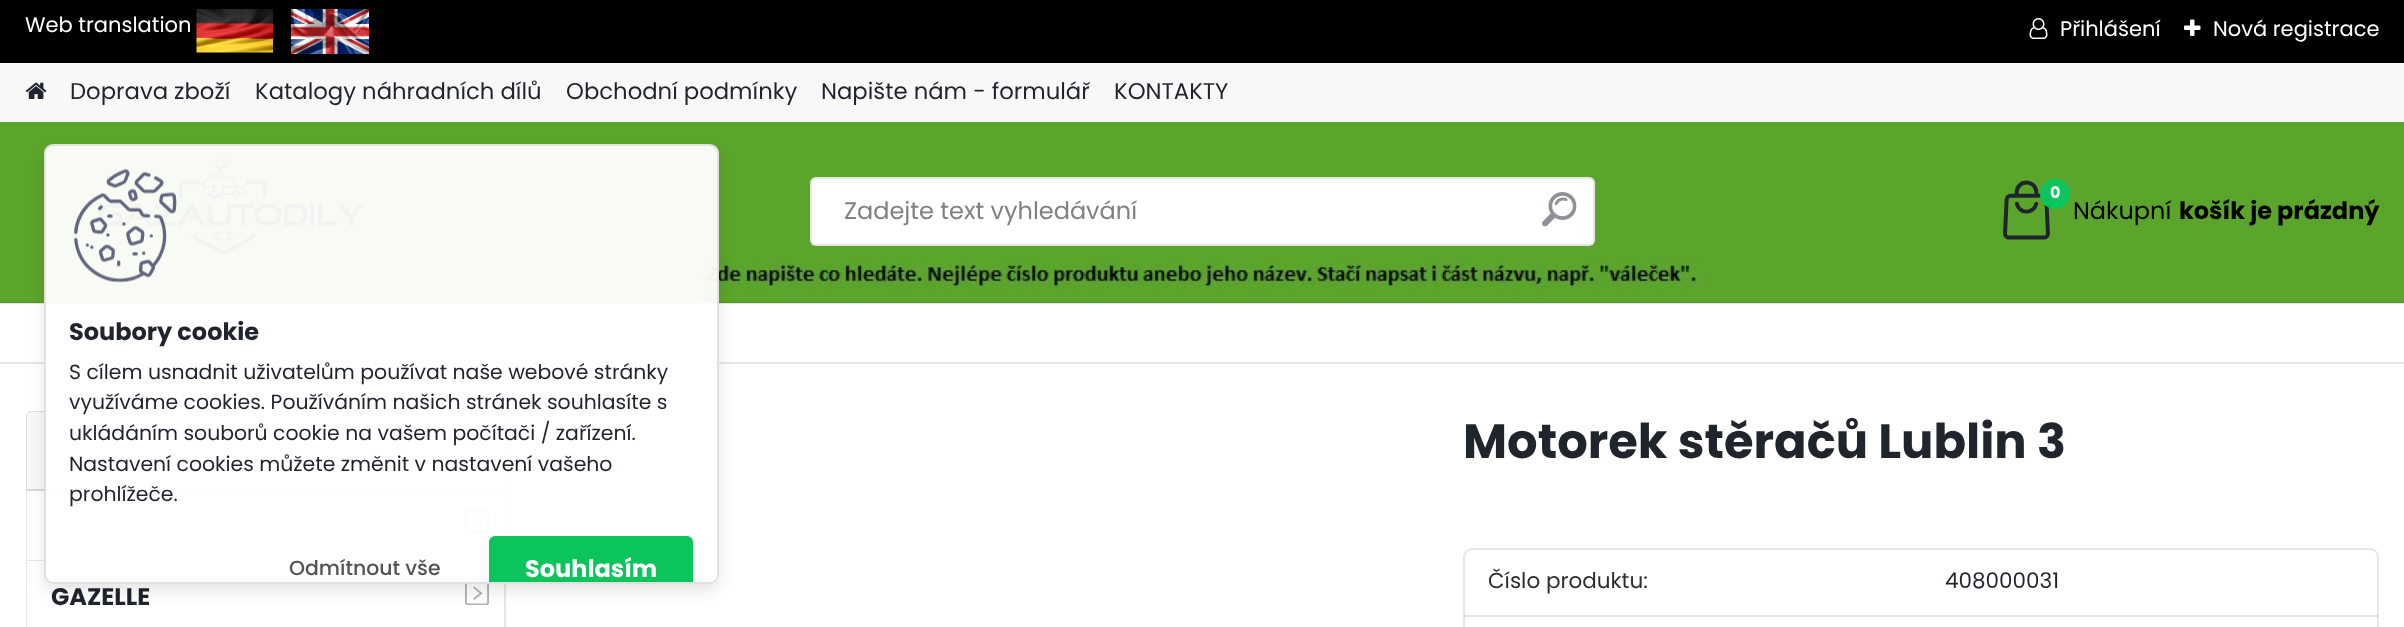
async function draw(canvas) {
	canvas.width = 2404;
	canvas.height = 627;
	const c = canvas.getContext('2d');
	c.miterLimit = 4;
	c.fontKerning = 'normal';
	async function loadImage(src) {
		const img = new Image();
		img.src = src;
		await img.decode();
		return img;
	}

	c.fillStyle = '#fff';
	c.fillRect(0, 0, 2404, 627);
	c.fillStyle = '#000';
	c.fillRect(0, 0, 2404, 63);
	c.font = '21px Poppins';
	c.fillStyle = '#fff';
	c.fillText('Web translation', 25, 32);
	c.drawImage(await loadImage('img1.png'), 196, 9, 77, 44);
	c.drawImage(await loadImage('img2.png'), 291, 9, 78, 45);
	c.drawImage(await loadImage('img3.png'), 2029, 18, 19, 21);
	c.fillText('Přihlášení', 2060, 36);
	c.drawImage(await loadImage('img4.png'), 2184, 19, 17, 17);
	c.fillText('Nová registrace', 2213, 36);
	c.fillStyle = '#5ca52c';
	c.fillRect(0, 122, 2404, 181);
	c.drawImage(await loadImage('img5.png'), 702, 255, 1008, 48);
	c.fillStyle = '#0000001a';
	c.fillRect(0, 302, 2404, 2);
	c.fillStyle = '#f8f8f8';
	c.fillRect(0, 63, 2404, 59);
	c.drawImage(await loadImage('img6.png'), 25, 82, 22, 17);
	c.font = '22.75px Poppins';
	c.fillStyle = '#1f242d';
	for (const [text, x, y] of [
		['Doprava zboží', 70, 99],
		['Katalogy náhradních dílů', 255, 99],
		['Obchodní podmínky', 566, 99],
		['Napište nám - formulář', 821, 99],
		['KONTAKTY', 1114, 99],
	]) {
		c.fillText(text, x, y);
	}
	c.drawImage(await loadImage('img7.png'), 98, 157, 266, 98);
	c.fillStyle = '#fff';
	c.beginPath();
	c.roundRect(810, 177, 785, 69, 6);
	c.fill();
	c.beginPath();
	c.roundRect(811, 178, 783, 67, 5);
	c.strokeStyle = '#0000001a';
	c.lineWidth = 2;
	c.stroke();
	c.font = '24px Poppins';
	c.fillStyle = '#808080';
	c.fillText('Zadejte text vyhledávání', 844, 219);
	c.drawImage(await loadImage('img8.png'), 1542, 192, 35, 35);
	c.drawImage(await loadImage('img9.png'), 2003, 180, 47, 60);
	c.fillStyle = '#0bc45c';
	c.beginPath();
	c.arc(2055, 194, 15, 0, 2 * Math.PI);
	c.fill();
	c.font = 'bold 16px Poppins';
	c.fillStyle = '#fff';
	c.fillText('0', 2050, 198);
	c.font = '24px Poppins';
	c.fillStyle = '#000';
	c.fillText('Nákupní', 2073, 219);
	c.font = 'bold 24px Poppins';
	c.fillText('košík je prázdný', 2179, 219);
	c.fillStyle = '#e6e6e6';
	c.fillRect(0, 362, 2404, 2);
	c.fillStyle = '#c3c3c3';
	c.beginPath();
	c.moveTo(109.5, 317);
	c.lineTo(111, 317);
	c.lineTo(125, 331.5);
	c.lineTo(123.5, 331.5);
	c.closePath();
	c.fill();
	c.beginPath();
	c.moveTo(123.5, 331.5);
	c.lineTo(125, 331.5);
	c.lineTo(111, 345.5);
	c.lineTo(109.5, 345.5);
	c.closePath();
	c.fill();
	c.beginPath();
	c.moveTo(219, 317);
	c.lineTo(220.5, 317);
	c.lineTo(234.5, 331.5);
	c.lineTo(233, 331.5);
	c.closePath();
	c.fill();
	c.fillStyle = '#3737374d';
	c.beginPath();
	c.moveTo(233, 331.5);
	c.lineTo(234.5, 331.5);
	c.lineTo(220.5, 345.5);
	c.lineTo(219, 345.5);
	c.closePath();
	c.fill();
	c.font = 'bold 48px Poppins';
	c.fillStyle = '#1f242d';
	c.fillText('Motorek stěračů Lublin 3', 1463, 458);
	c.beginPath();
	c.roundRect(1464, 549, 914, 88, 8);
	c.strokeStyle = '#e6e6e6';
	c.stroke();
	c.fillStyle = '#0000001a';
	c.fillRect(1464, 615, 914, 2);
	c.font = '21.5px Poppins';
	c.fillStyle = '#2d2d2d';
	c.fillText('Číslo produktu:', 1488, 588);
	c.fillStyle = '#1f242d';
	c.fillText('408000031', 1945, 588);
	c.fillStyle = '#e6e6e6';
	c.beginPath();
	c.moveTo(506, 489);
	c.lineTo(506, 561);
	c.lineTo(504, 560);
	c.lineTo(504, 489);
	c.closePath();
	c.fill();
	c.fillStyle = '#0000001a';
	c.beginPath();
	c.moveTo(506, 561);
	c.lineTo(26, 561);
	c.lineTo(27, 560);
	c.lineTo(504, 560);
	c.closePath();
	c.fill();
	c.beginPath();
	c.moveTo(26, 561);
	c.lineTo(26, 489);
	c.lineTo(27, 489);
	c.lineTo(27, 560);
	c.closePath();
	c.fill();
	c.fillStyle = '#d9d9d9';
	c.beginPath();
	c.moveTo(26, 489);
	c.lineTo(26, 491);
	c.lineTo(506, 491);
	c.lineTo(506, 418);
	c.lineTo(506, 416);
	c.lineTo(506, 489);
	c.closePath();
	c.fill();
	c.fillStyle = '#f8f8f8';
	c.beginPath();
	c.roundRect(26, 411, 480, 78, [5, 5, 0, 0]);
	c.fill();
	c.fillStyle = '#0000001a';
	c.beginPath();
	c.moveTo(30, 411);
	c.lineTo(501, 411);
	c.bezierCurveTo(503, 411, 506, 413, 506, 416);
	c.lineTo(506, 489);
	c.lineTo(26, 489);
	c.lineTo(26, 416);
	c.bezierCurveTo(26, 413, 28, 411, 30, 411);
	c.closePath();
	c.moveTo(30, 412);
	c.lineTo(501, 412);
	c.bezierCurveTo(503, 412, 504, 414, 504, 416);
	c.lineTo(504, 489);
	c.lineTo(27, 489);
	c.lineTo(27, 416);
	c.bezierCurveTo(27, 414, 28, 412, 30, 412);
	c.closePath();
	c.fill('evenodd');
	c.drawImage(await loadImage('img10.png'), 465, 509, 24, 24);
	c.fillStyle = '#e6e6e6';
	c.beginPath();
	c.moveTo(506, 561);
	c.lineTo(506, 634);
	c.lineTo(504, 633);
	c.lineTo(504, 561);
	c.closePath();
	c.fill();
	c.beginPath();
	c.moveTo(26, 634);
	c.lineTo(26, 561);
	c.lineTo(27, 561);
	c.lineTo(27, 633);
	c.closePath();
	c.fill();
	c.font = 'bold 24px Poppins';
	c.fillStyle = '#1f242d';
	c.fillText('GAZELLE', 51, 605);
	c.drawImage(await loadImage('img10.png'), 465, 581, 24, 24);
	c.save();
	c.beginPath();
	c.moveTo(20, 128);
	c.lineTo(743, 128);
	c.lineTo(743, 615);
	c.lineTo(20, 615);
	c.closePath();
	c.moveTo(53, 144);
	c.lineTo(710, 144);
	c.bezierCurveTo(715, 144, 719, 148, 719, 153);
	c.lineTo(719, 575);
	c.bezierCurveTo(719, 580, 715, 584, 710, 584);
	c.lineTo(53, 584);
	c.bezierCurveTo(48, 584, 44, 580, 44, 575);
	c.lineTo(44, 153);
	c.bezierCurveTo(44, 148, 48, 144, 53, 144);
	c.closePath();
	c.clip('evenodd');
	c.fillStyle = '#0000001a';
	c.filter = 'blur(7.5px)';
	c.beginPath();
	c.roundRect(44, 152, 675, 439, 9);
	c.fill();
	c.filter = 'none';
	c.restore();
	c.fillStyle = '#fffffff2';
	c.beginPath();
	c.roundRect(45, 145, 673, 438, 8);
	c.fill();
	c.strokeStyle = '#e0e0e0';
	c.stroke();
	c.drawImage(await loadImage('img11.png'), 74, 169, 103, 114);
	c.fillStyle = '#1f242d';
	c.fillText('Soubory cookie', 69, 340);
	c.font = '20.4px Poppins';
	for (const [text, x, y] of [
		['S cílem usnadnit uživatelům používat naše webové stránky', 69, 379],
		['využíváme cookies. Používáním našich stránek souhlasíte s', 69, 409],
		['ukládáním souborů cookie na vašem počítači / zařízení.', 69, 440],
		['Nastavení cookies můžete změnit v nastavení vašeho', 69, 471],
		['prohlížeče.', 69, 501],
	]) {
		c.fillText(text, x, y);
	}
	c.font = '500 20.4px Poppins';
	c.fillStyle = '#535353';
	c.fillText('Odmítnout vše', 289, 575);
	c.fillStyle = '#0bc45c';
	c.beginPath();
	c.roundRect(489, 536, 204, 46, [6, 6, 0, 0]);
	c.fill();
	c.font = 'bold 24px Poppins';
	c.fillStyle = '#fff';
	c.fillText('Souhlasím', 525, 577);
}

draw(document.querySelector('canvas'));
